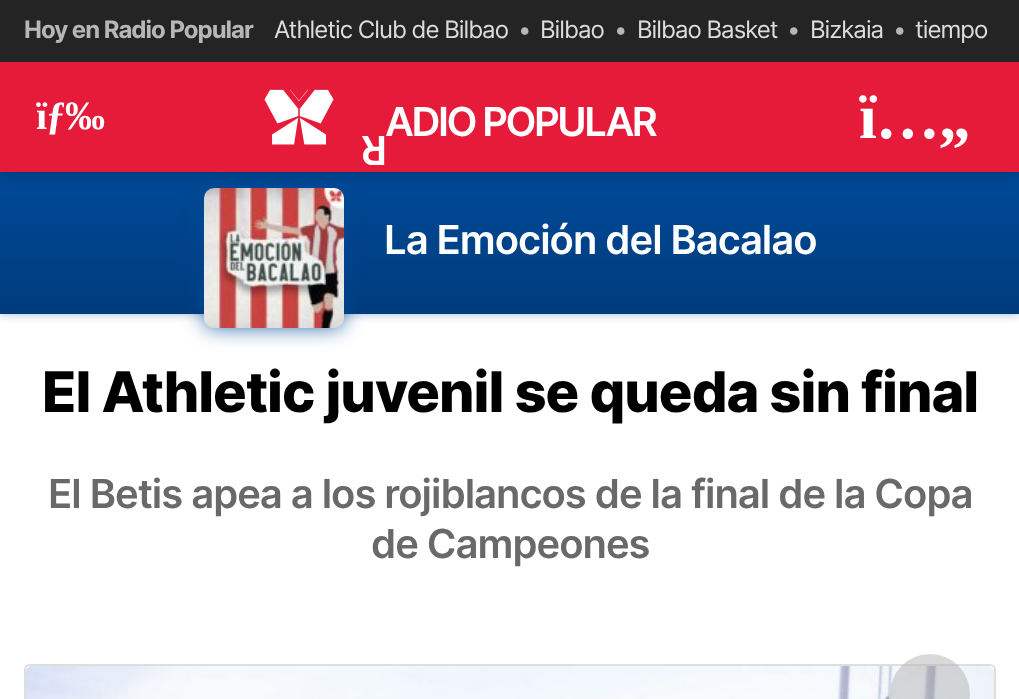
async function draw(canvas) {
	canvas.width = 1019;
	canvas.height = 699;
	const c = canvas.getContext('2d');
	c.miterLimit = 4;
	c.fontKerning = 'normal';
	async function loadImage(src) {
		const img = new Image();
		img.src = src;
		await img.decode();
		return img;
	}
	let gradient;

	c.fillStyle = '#fff';
	c.fillRect(0, 0, 1019, 699);
	c.fillStyle = '#004a9966';
	c.filter = 'blur(5px)';
	c.beginPath();
	c.rect(0, 168, 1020, 146);
	c.fill();
	c.filter = 'none';
	gradient = c.createLinearGradient(510, 168, 510, 314);
	gradient.addColorStop(0, '#004a99');
	gradient.addColorStop(1, '#003c7c');
	c.fillStyle = gradient;
	c.fillRect(0, 172, 1019, 142);
	c.fillStyle = '#004a99cc';
	c.filter = 'blur(10px)';
	c.beginPath();
	c.roundRect(204, 188, 140, 140, 10);
	c.fill();
	c.filter = 'none';
	c.drawImage(await loadImage('img2.png'), 204, 188, 140, 140);
	c.fillStyle = '#00000040';
	c.filter = 'blur(8px)';
	c.beginPath();
	c.rect(0, 64, 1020, 110);
	c.fill();
	c.filter = 'none';
	c.fillStyle = '#242424';
	c.fillRect(0, 0, 1019, 62);
	c.letterSpacing = '-1px';
	c.font = 'bold 24px Inter';
	c.fillStyle = '#b7b7b7';
	c.fillText('Hoy en Radio Popular', 24, 38);
	c.font = '24px Inter';
	c.fillStyle = '#ddd';
	c.fillText('Athletic Club de Bilbao', 274, 38);
	c.fillStyle = '#b7b7b7';
	c.fillText('•', 518, 38);
	c.fillStyle = '#ddd';
	c.fillText('Bilbao', 540, 38);
	c.fillStyle = '#b7b7b7';
	c.fillText('•', 614, 38);
	c.fillStyle = '#ddd';
	c.fillText('Bilbao Basket', 637, 38);
	c.fillStyle = '#b7b7b7';
	c.fillText('•', 787, 38);
	c.fillStyle = '#ddd';
	c.fillText('Bizkaia', 810, 38);
	c.fillStyle = '#b7b7b7';
	c.fillText('•', 893, 38);
	c.fillStyle = '#ddd';
	c.fillText('tiempo', 915, 38);
	c.fillStyle = '#e61a39';
	c.fillRect(0, 62, 1019, 110);
	c.font = 'bold 40px Liberation Serif';
	c.fillStyle = '#fff';
	c.fillText('ïƒ‰', 36, 129);
	c.drawImage(await loadImage('img1.png'), 264, 89, 70, 56);
	c.letterSpacing = '-2.5px';
	c.font = '600 40px Inter';
	c.fillText('ADIO POPULAR', 385, 136);
	c.letterSpacing = '-2px';
	c.save();
	c.translate(387, 136);
	c.rotate(180 * Math.PI / 180);
	c.fillText('R', 0, 0);
	c.restore();
	c.letterSpacing = '-1px';
	c.font = 'bold 64px Liberation Serif';
	c.fillText('ï…„', 859, 138);
	c.font = '600 40px Inter';
	c.fillText('La Emoción del Bacalao', 384, 254);
	c.font = '800 56px Inter';
	c.fillStyle = '#000';
	c.fillText('El Athletic juvenil se queda sin final', 42, 412);
	c.font = '600 40px Inter';
	c.fillStyle = '#696969';
	c.fillText('El Betis apea a los rojiblancos de la final de la Copa', 48, 508);
	c.fillText('de Campeones', 371, 558);
	c.beginPath();
	c.roundRect(25, 665, 970, 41, 5);
	c.strokeStyle = '#dedede';
	c.lineWidth = 2;
	c.stroke();
	c.drawImage(await loadImage('img3.png'), 26, 666, 968, 33);
	c.fillStyle = '#b0b0b07a';
	c.beginPath();
	c.arc(930, 694, 40, 0, 2 * Math.PI);
	c.fill();
}

draw(document.querySelector('canvas'));
